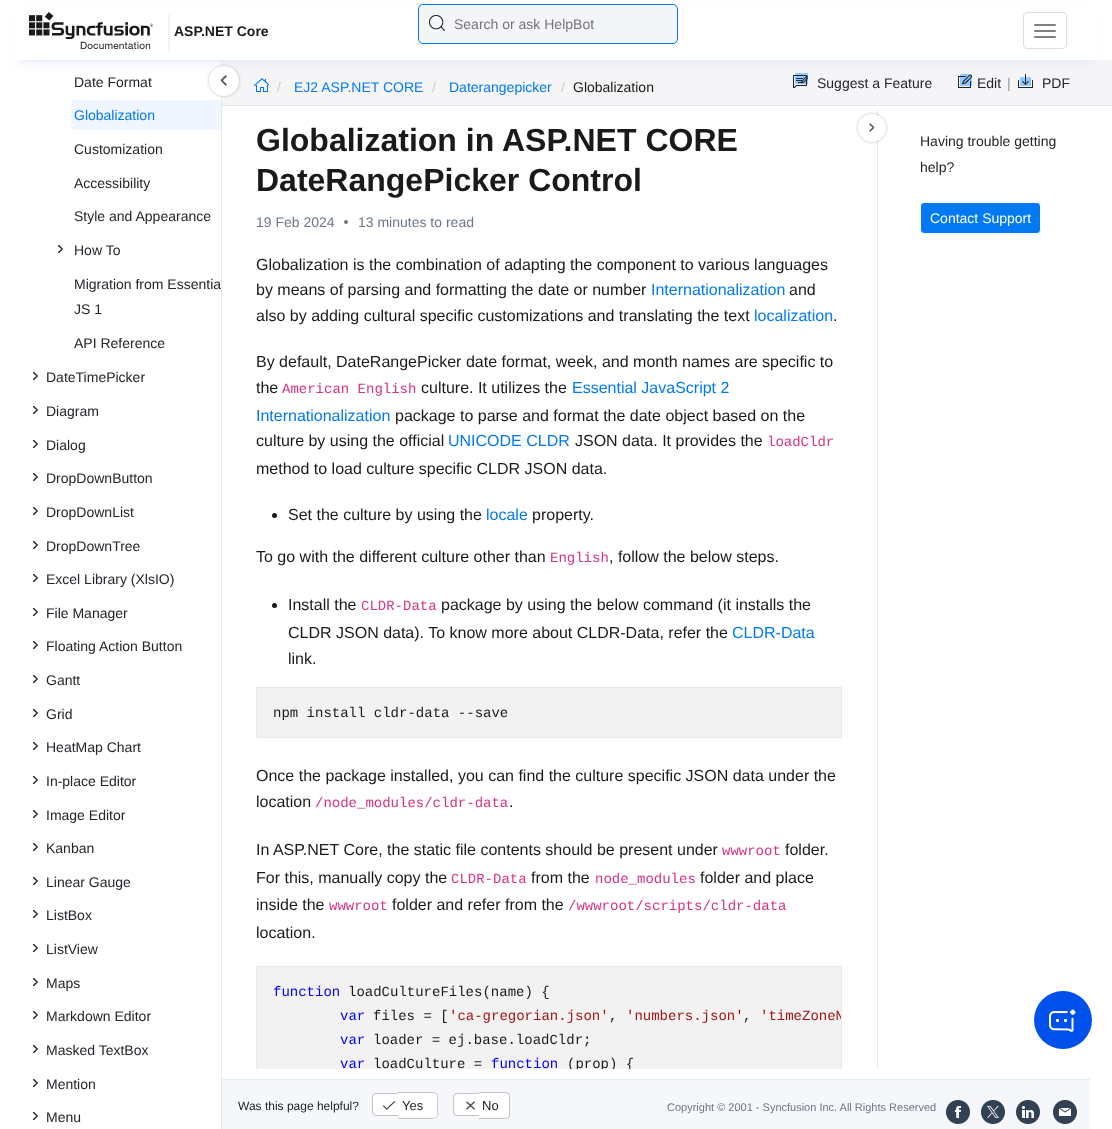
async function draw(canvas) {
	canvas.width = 1112;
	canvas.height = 1129;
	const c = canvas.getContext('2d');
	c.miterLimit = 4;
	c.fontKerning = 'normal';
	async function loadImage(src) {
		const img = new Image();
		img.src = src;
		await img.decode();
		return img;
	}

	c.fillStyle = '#fff';
	c.fillRect(0, 0, 1112, 1129);
	c.fillStyle = '#f5f5f7';
	c.fillRect(222, 60, 890, 45);
	c.drawImage(await loadImage('img3.png'), 254, 78, 15, 14);
	c.drawImage(await loadImage('img4.png'), 793, 73, 15, 15);
	c.drawImage(await loadImage('img5.png'), 958, 74, 14, 14);
	c.drawImage(await loadImage('img6.png'), 1018, 74, 15, 14);
	c.fillStyle = '#e7e7e7';
	c.fillRect(221, 60, 1, 1069);
	c.drawImage(await loadImage('img8.png'), 207, 64, 34, 34);
	c.fillStyle = '#e2eaf5';
	c.filter = 'blur(5.5px)';
	c.beginPath();
	c.rect(18, 14, 1076, 48);
	c.fill();
	c.filter = 'none';
	c.fillStyle = '#fff';
	c.fillRect(12, 7, 1088, 53);
	c.drawImage(await loadImage('img1.png'), 29, 12, 141, 40);
	c.font = 'bold 14px Liberation Sans';
	c.fillStyle = '#1a1a1a';
	c.fillText('ASP.NET Core', 174, 36);
	c.fillStyle = '#f4f5f8';
	c.beginPath();
	c.roundRect(418, 4, 260, 40, 5);
	c.fill();
	c.drawImage(await loadImage('img2.png'), 429, 15, 16, 16);
	c.beginPath();
	c.roundRect(418.5, 4.5, 259, 39, 4.5);
	c.strokeStyle = '#0079f3';
	c.stroke();
	c.font = '14px Liberation Sans';
	c.fillStyle = '#757575';
	c.fillText('Search or ask HelpBot', 454, 29);
	c.beginPath();
	c.roundRect(1023.5, 12.5, 43, 36, 3.5);
	c.strokeStyle = '#ddd';
	c.stroke();
	c.fillStyle = '#808080';
	c.beginPath();
	c.roundRect(1034, 24, 22, 2, 1);
	c.fill();
	c.beginPath();
	c.roundRect(1034, 30, 22, 2, 1);
	c.fill();
	c.beginPath();
	c.roundRect(1034, 36, 22, 2, 1);
	c.fill();
	c.fillStyle = '#e7e7e7';
	c.fillRect(222, 105, 890, 1);
	c.fillStyle = '#ccc';
	c.fillText('/', 277, 92);
	c.fillStyle = '#0079f3';
	c.fillText('EJ2 ASP.NET CORE', 294, 92);
	c.fillStyle = '#ccc';
	c.fillText('/', 432, 92);
	c.fillStyle = '#0079f3';
	c.fillText('Daterangepicker', 449, 92);
	c.fillStyle = '#ccc';
	c.fillText('/', 561, 92);
	c.fillStyle = '#1a1a1a';
	c.fillText('Globalization', 573, 92);
	c.fillStyle = '#22252a';
	c.fillText('Suggest a Feature', 817, 88);
	c.fillText('Edit', 977, 88);
	c.fillStyle = '#979797';
	c.fillText('|', 1007, 88);
	c.fillStyle = '#22252a';
	c.fillText('PDF', 1042, 88);
	c.fillText('Date Format', 74, 87);
	c.fillStyle = '#eff6ff';
	c.beginPath();
	c.roundRect(71, 100, 150, 30, [4, 0, 0, 4]);
	c.fill();
	c.fillStyle = '#0079f3';
	c.fillText('Globalization', 74, 120);
	c.fillStyle = '#22252a';
	for (const [text, x, y] of [
		['Customization', 74, 154],
		['Accessibility', 74, 188],
		['Style and Appearance', 74, 221],
	]) {
		c.fillText(text, x, y);
	}
	c.drawImage(await loadImage('img7.png'), 58, 245, 6, 8);
	for (const [text, x, y] of [
		['How To', 74, 255],
		['Migration from Essentia', 74, 289],
		['JS 1', 74, 314],
		['API Reference', 74, 348],
	]) {
		c.fillText(text, x, y);
	}
	c.drawImage(await loadImage('img7.png'), 33, 372, 6, 8);
	c.fillText('DateTimePicker', 46, 382);
	c.drawImage(await loadImage('img7.png'), 33, 406, 6, 8);
	c.fillText('Diagram', 46, 416);
	c.drawImage(await loadImage('img7.png'), 33, 440, 6, 8);
	c.fillText('Dialog', 46, 450);
	c.drawImage(await loadImage('img7.png'), 33, 473, 6, 8);
	c.fillText('DropDownButton', 46, 483);
	c.drawImage(await loadImage('img7.png'), 33, 507, 6, 8);
	c.fillText('DropDownList', 46, 517);
	c.drawImage(await loadImage('img7.png'), 33, 541, 6, 8);
	c.fillText('DropDownTree', 46, 551);
	c.drawImage(await loadImage('img7.png'), 33, 574, 6, 8);
	c.fillText('Excel Library (XlsIO)', 46, 584);
	c.drawImage(await loadImage('img7.png'), 33, 608, 6, 8);
	c.fillText('File Manager', 46, 618);
	c.drawImage(await loadImage('img7.png'), 33, 641, 6, 8);
	c.fillText('Floating Action Button', 46, 651);
	c.drawImage(await loadImage('img7.png'), 33, 675, 6, 8);
	c.fillText('Gantt', 46, 685);
	c.drawImage(await loadImage('img7.png'), 33, 709, 6, 8);
	c.fillText('Grid', 46, 719);
	c.drawImage(await loadImage('img7.png'), 33, 742, 6, 8);
	c.fillText('HeatMap Chart', 46, 752);
	c.drawImage(await loadImage('img7.png'), 33, 776, 6, 8);
	c.fillText('In-place Editor', 46, 786);
	c.drawImage(await loadImage('img7.png'), 33, 810, 6, 8);
	c.fillText('Image Editor', 46, 820);
	c.drawImage(await loadImage('img7.png'), 33, 843, 6, 8);
	c.fillText('Kanban', 46, 853);
	c.drawImage(await loadImage('img7.png'), 33, 877, 6, 8);
	c.fillText('Linear Gauge', 46, 887);
	c.drawImage(await loadImage('img7.png'), 33, 910, 6, 8);
	c.fillText('ListBox', 46, 920);
	c.drawImage(await loadImage('img7.png'), 33, 944, 6, 8);
	c.fillText('ListView', 46, 954);
	c.drawImage(await loadImage('img7.png'), 33, 978, 6, 8);
	c.fillText('Maps', 46, 988);
	c.drawImage(await loadImage('img7.png'), 33, 1011, 6, 8);
	c.fillText('Markdown Editor', 46, 1021);
	c.drawImage(await loadImage('img7.png'), 33, 1045, 6, 8);
	c.fillText('Masked TextBox', 46, 1055);
	c.drawImage(await loadImage('img7.png'), 33, 1079, 6, 8);
	c.fillText('Mention', 46, 1089);
	c.drawImage(await loadImage('img7.png'), 33, 1112, 6, 8);
	c.fillText('Menu', 46, 1122);
	c.fillStyle = '#e7e7e7';
	c.fillRect(877, 110, 1, 959);
	c.font = 'bold 32px Liberation Sans';
	c.fillStyle = '#1a1a1a';
	c.fillText('Globalization in ASP.NET CORE', 256, 151);
	c.fillText('DateRangePicker Control', 256, 191);
	c.font = '14px Liberation Sans';
	c.fillStyle = '#6c7786';
	c.fillText('19 Feb 2024', 256, 227);
	c.beginPath();
	c.arc(346, 222, 2, 0, 2 * Math.PI);
	c.fill();
	c.fillText('13 minutes to read', 358, 227);
	c.font = '16px Liberation Sans';
	c.fillStyle = '#1a1a1a';
	c.fillText('Globalization is the combination of adapting the component to various languages', 256, 270);
	c.fillText('by means of parsing and formatting the date or number', 256, 295);
	c.fillStyle = '#0079f3';
	c.fillText('Internationalization', 651, 295);
	c.fillStyle = '#1a1a1a';
	c.fillText('and', 789, 295);
	c.fillText('also by adding cultural specific customizations and translating the text', 256, 321);
	c.fillStyle = '#0079f3';
	c.fillText('localization', 754, 321);
	c.fillStyle = '#1a1a1a';
	for (const [text, x, y] of [
		['.', 833, 321],
		['By default, DateRangePicker date format, week, and month names are specific to', 256, 367],
		['the', 256, 393],
	]) {
		c.fillText(text, x, y);
	}
	c.font = '14px Liberation Mono';
	c.fillStyle = '#d63384';
	c.fillText('American English', 282, 393);
	c.font = '16px Liberation Sans';
	c.fillStyle = '#1a1a1a';
	c.fillText('culture. It utilizes the', 421, 393);
	c.fillStyle = '#0079f3';
	c.fillText('Essential JavaScript 2', 572, 393);
	c.fillText('Internationalization', 256, 421);
	c.fillStyle = '#1a1a1a';
	c.fillText('package to parse and format the date object based on the', 395, 421);
	c.fillText('culture by using the official', 256, 446);
	c.fillStyle = '#0079f3';
	c.fillText('UNICODE CLDR', 448, 446);
	c.fillStyle = '#1a1a1a';
	c.fillText('JSON data. It provides the', 575, 446);
	c.font = '14px Liberation Mono';
	c.fillStyle = '#d63384';
	c.fillText('loadCldr', 767, 446);
	c.font = '16px Liberation Sans';
	c.fillStyle = '#1a1a1a';
	c.fillText('method to load culture specific CLDR JSON data.', 256, 474);
	c.beginPath();
	c.arc(274.5, 515.5, 2.5, 0, 2 * Math.PI);
	c.fill();
	c.fillText('Set the culture by using the', 288, 520);
	c.fillStyle = '#0079f3';
	c.fillText('locale', 486, 520);
	c.fillStyle = '#1a1a1a';
	c.fillText('property.', 532, 520);
	c.fillText('To go with the different culture other than', 256, 562);
	c.font = '14px Liberation Mono';
	c.fillStyle = '#d63384';
	c.fillText('English', 550, 562);
	c.font = '16px Liberation Sans';
	c.fillStyle = '#1a1a1a';
	c.fillText(', follow the below steps.', 609, 562);
	c.beginPath();
	c.arc(274.5, 605.5, 2.5, 0, 2 * Math.PI);
	c.fill();
	c.fillText('Install the', 288, 610);
	c.font = '14px Liberation Mono';
	c.fillStyle = '#d63384';
	c.fillText('CLDR-Data', 361, 610);
	c.font = '16px Liberation Sans';
	c.fillStyle = '#1a1a1a';
	c.fillText('package by using the below command (it installs the', 441, 610);
	c.fillText('CLDR JSON data). To know more about CLDR-Data, refer the', 288, 638);
	c.fillStyle = '#0079f3';
	c.fillText('CLDR-Data', 732, 638);
	c.fillStyle = '#1a1a1a';
	c.fillText('link.', 288, 664);
	c.fillStyle = '#f2f2f2';
	c.beginPath();
	c.rect(256.5, 687.5, 585, 50);
	c.fill();
	c.strokeStyle = '#e8e8e8';
	c.stroke();
	c.font = '14px Liberation Mono';
	c.fillStyle = '#1a1a1a';
	c.fillText('npm install cldr-data --save', 273, 717);
	c.font = '16px Liberation Sans';
	c.fillText('Once the package installed, you can find the culture specific JSON data under the', 256, 781);
	c.fillText('location', 256, 807);
	c.font = '14px Liberation Mono';
	c.fillStyle = '#d63384';
	c.fillText('/node_modules/cldr-data', 315, 807);
	c.font = '16px Liberation Sans';
	c.fillStyle = '#1a1a1a';
	c.fillText('.', 509, 807);
	c.fillText('In ASP.NET Core, the static file contents should be present under', 256, 855);
	c.font = '14px Liberation Mono';
	c.fillStyle = '#d63384';
	c.fillText('wwwroot', 722, 855);
	c.font = '16px Liberation Sans';
	c.fillStyle = '#1a1a1a';
	c.fillText('folder.', 785, 855);
	c.fillText('For this, manually copy the', 256, 883);
	c.font = '14px Liberation Mono';
	c.fillStyle = '#d63384';
	c.fillText('CLDR-Data', 451, 883);
	c.font = '16px Liberation Sans';
	c.fillStyle = '#1a1a1a';
	c.fillText('from the', 531, 883);
	c.font = '14px Liberation Mono';
	c.fillStyle = '#d63384';
	c.fillText('node_modules', 595, 883);
	c.font = '16px Liberation Sans';
	c.fillStyle = '#1a1a1a';
	c.fillText('folder and place', 700, 883);
	c.fillText('inside the', 256, 910);
	c.font = '14px Liberation Mono';
	c.fillStyle = '#d63384';
	c.fillText('wwwroot', 329, 910);
	c.font = '16px Liberation Sans';
	c.fillStyle = '#1a1a1a';
	c.fillText('folder and refer from the', 392, 910);
	c.font = '14px Liberation Mono';
	c.fillStyle = '#d63384';
	c.fillText('/wwwroot/scripts/cldr-data', 568, 910);
	c.font = '16px Liberation Sans';
	c.fillStyle = '#1a1a1a';
	c.fillText('location.', 256, 938);
	c.fillStyle = '#f2f2f2';
	c.fillRect(257, 967, 584, 102);
	c.save();
	c.beginPath();
	c.rect(256, 110, 621, 959);
	c.clip();
	c.strokeRect(256.5, 966.5, 585, 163);
	c.restore();
	c.font = '14px Liberation Mono';
	c.fillStyle = '#00f';
	c.fillText('function', 273, 996);
	c.fillStyle = '#1a1a1a';
	c.fillText('loadCultureFiles(name) {', 348, 996);
	c.fillStyle = '#00f';
	c.fillText('var', 340, 1020);
	c.fillStyle = '#1a1a1a';
	c.fillText('files = [', 373, 1020);
	c.fillStyle = '#a31515';
	c.fillText('\'ca-gregorian.json\'', 449, 1020);
	c.fillStyle = '#1a1a1a';
	c.fillText(',', 609, 1020);
	c.fillStyle = '#a31515';
	c.fillText('\'numbers.json\'', 626, 1020);
	c.fillStyle = '#1a1a1a';
	c.fillText(',', 743, 1020);
	c.save();
	c.beginPath();
	c.rect(257, 967, 584, 102);
	c.clip();
	c.fillStyle = '#a31515';
	c.fillText('\'timeZoneN', 760, 1020);
	c.restore();
	c.fillStyle = '#00f';
	c.fillText('var', 340, 1044);
	c.fillStyle = '#1a1a1a';
	c.fillText('loader = ej.base.loadCldr;', 373, 1044);
	c.fillStyle = '#00f';
	c.fillText('var', 340, 1068);
	c.fillStyle = '#1a1a1a';
	c.fillText('loadCulture =', 373, 1068);
	c.fillStyle = '#00f';
	c.fillText('function', 491, 1068);
	c.save();
	c.beginPath();
	c.rect(257, 967, 584, 102);
	c.clip();
	c.fillStyle = '#1a1a1a';
	c.fillText('(prop) {', 567, 1068);
	c.restore();
	c.drawImage(await loadImage('img9.png'), 856, 112, 32, 32);
	c.font = '14px Liberation Sans';
	c.fillStyle = '#22252a';
	c.fillText('Having trouble getting', 920, 146);
	c.fillText('help?', 920, 172);
	c.fillStyle = '#0079f3';
	c.beginPath();
	c.roundRect(920.5, 202.5, 120, 31, 3.5);
	c.fill();
	c.strokeStyle = '#fff';
	c.stroke();
	c.fillStyle = '#fff';
	c.fillText('Contact Support', 930, 223);
	c.fillStyle = '#0050eb';
	c.beginPath();
	c.arc(1063, 1020, 29, 0, 2 * Math.PI);
	c.fill();
	c.drawImage(await loadImage('img10.png'), 1049, 1009, 27, 23);
	c.fillStyle = '#f5f7fa';
	c.fillRect(222, 1080, 868, 49);
	c.fillStyle = '#eaeaea';
	c.fillRect(222, 1079, 868, 1);
	c.font = '12px Liberation Sans';
	c.fillStyle = '#22252a';
	c.fillText('Was this page helpful?', 238, 1110);
	c.fillStyle = '#fff';
	c.beginPath();
	c.roundRect(372, 1093, 26, 23, [4, 0, 0, 4]);
	c.fill();
	c.fillStyle = '#c5c5c5';
	c.beginPath();
	c.moveTo(376, 1093);
	c.lineTo(398, 1093);
	c.lineTo(398, 1116);
	c.lineTo(376, 1116);
	c.bezierCurveTo(374, 1116, 372, 1114, 372, 1112);
	c.lineTo(372, 1097);
	c.bezierCurveTo(372, 1095, 374, 1093, 376, 1093);
	c.closePath();
	c.moveTo(376, 1094);
	c.lineTo(398, 1094);
	c.lineTo(398, 1115);
	c.lineTo(376, 1115);
	c.bezierCurveTo(374.5, 1115, 373, 1113.5, 373, 1112);
	c.lineTo(373, 1097);
	c.bezierCurveTo(373, 1095.5, 374.5, 1094, 376, 1094);
	c.closePath();
	c.fill('evenodd');
	c.fillStyle = '#fff';
	c.beginPath();
	c.roundRect(398, 1092, 40, 27, [0, 4, 4, 0]);
	c.fill();
	c.fillStyle = '#c5c5c5';
	c.beginPath();
	c.moveTo(398, 1092);
	c.lineTo(428, 1092);
	c.bezierCurveTo(440, 1092, 438, 1094, 438, 1106);
	c.bezierCurveTo(438, 1117, 440, 1119, 428, 1119);
	c.lineTo(398, 1119);
	c.closePath();
	c.moveTo(398, 1093);
	c.lineTo(428, 1093);
	c.bezierCurveTo(440, 1093, 437, 1094, 437, 1106);
	c.bezierCurveTo(437, 1117, 440, 1118, 428, 1118);
	c.lineTo(398, 1118);
	c.closePath();
	c.fill('evenodd');
	c.drawImage(await loadImage('img11.png'), 383, 1101, 12, 9);
	c.font = '13px Liberation Sans';
	c.fillStyle = '#22252a';
	c.fillText('Yes', 402, 1110);
	c.fillStyle = '#fff';
	c.beginPath();
	c.roundRect(453, 1093, 26, 23, [4, 0, 0, 4]);
	c.fill();
	c.fillStyle = '#c5c5c5';
	c.beginPath();
	c.moveTo(457, 1093);
	c.lineTo(479, 1093);
	c.lineTo(479, 1116);
	c.lineTo(457, 1116);
	c.bezierCurveTo(455, 1116, 453, 1114, 453, 1112);
	c.lineTo(453, 1097);
	c.bezierCurveTo(453, 1095, 455, 1093, 457, 1093);
	c.closePath();
	c.moveTo(457, 1094);
	c.lineTo(479, 1094);
	c.lineTo(479, 1115);
	c.lineTo(457, 1115);
	c.bezierCurveTo(455.5, 1115, 454, 1113.5, 454, 1112);
	c.lineTo(454, 1097);
	c.bezierCurveTo(454, 1095.5, 455.5, 1094, 457, 1094);
	c.closePath();
	c.fill('evenodd');
	c.fillStyle = '#fff';
	c.beginPath();
	c.roundRect(479, 1092, 31, 27, [0, 4, 4, 0]);
	c.fill();
	c.fillStyle = '#c5c5c5';
	c.beginPath();
	c.moveTo(479, 1092);
	c.lineTo(506, 1092);
	c.bezierCurveTo(508, 1092, 510, 1094, 510, 1096);
	c.lineTo(510, 1115);
	c.bezierCurveTo(510, 1117, 508, 1119, 506, 1119);
	c.lineTo(479, 1119);
	c.closePath();
	c.moveTo(479, 1093);
	c.lineTo(506, 1093);
	c.bezierCurveTo(507.5, 1093, 509, 1094.5, 509, 1096);
	c.lineTo(509, 1115);
	c.bezierCurveTo(509, 1116.5, 507.5, 1118, 506, 1118);
	c.lineTo(479, 1118);
	c.closePath();
	c.fill('evenodd');
	c.drawImage(await loadImage('img12.png'), 466, 1101, 9, 9);
	c.fillStyle = '#22252a';
	c.fillText('No', 482, 1110);
	c.font = '11px Liberation Sans';
	c.fillStyle = '#6c7786';
	c.fillText('Copyright © 2001 - Syncfusion Inc. All Rights Reserved', 667, 1111);
	c.drawImage(await loadImage('img13.png'), 946, 1100, 24, 24);
	c.drawImage(await loadImage('img14.png'), 981, 1100, 24, 24);
	c.drawImage(await loadImage('img15.png'), 1016, 1100, 24, 24);
	c.drawImage(await loadImage('img16.png'), 1053, 1100, 24, 24);
}

draw(document.querySelector('canvas'));
